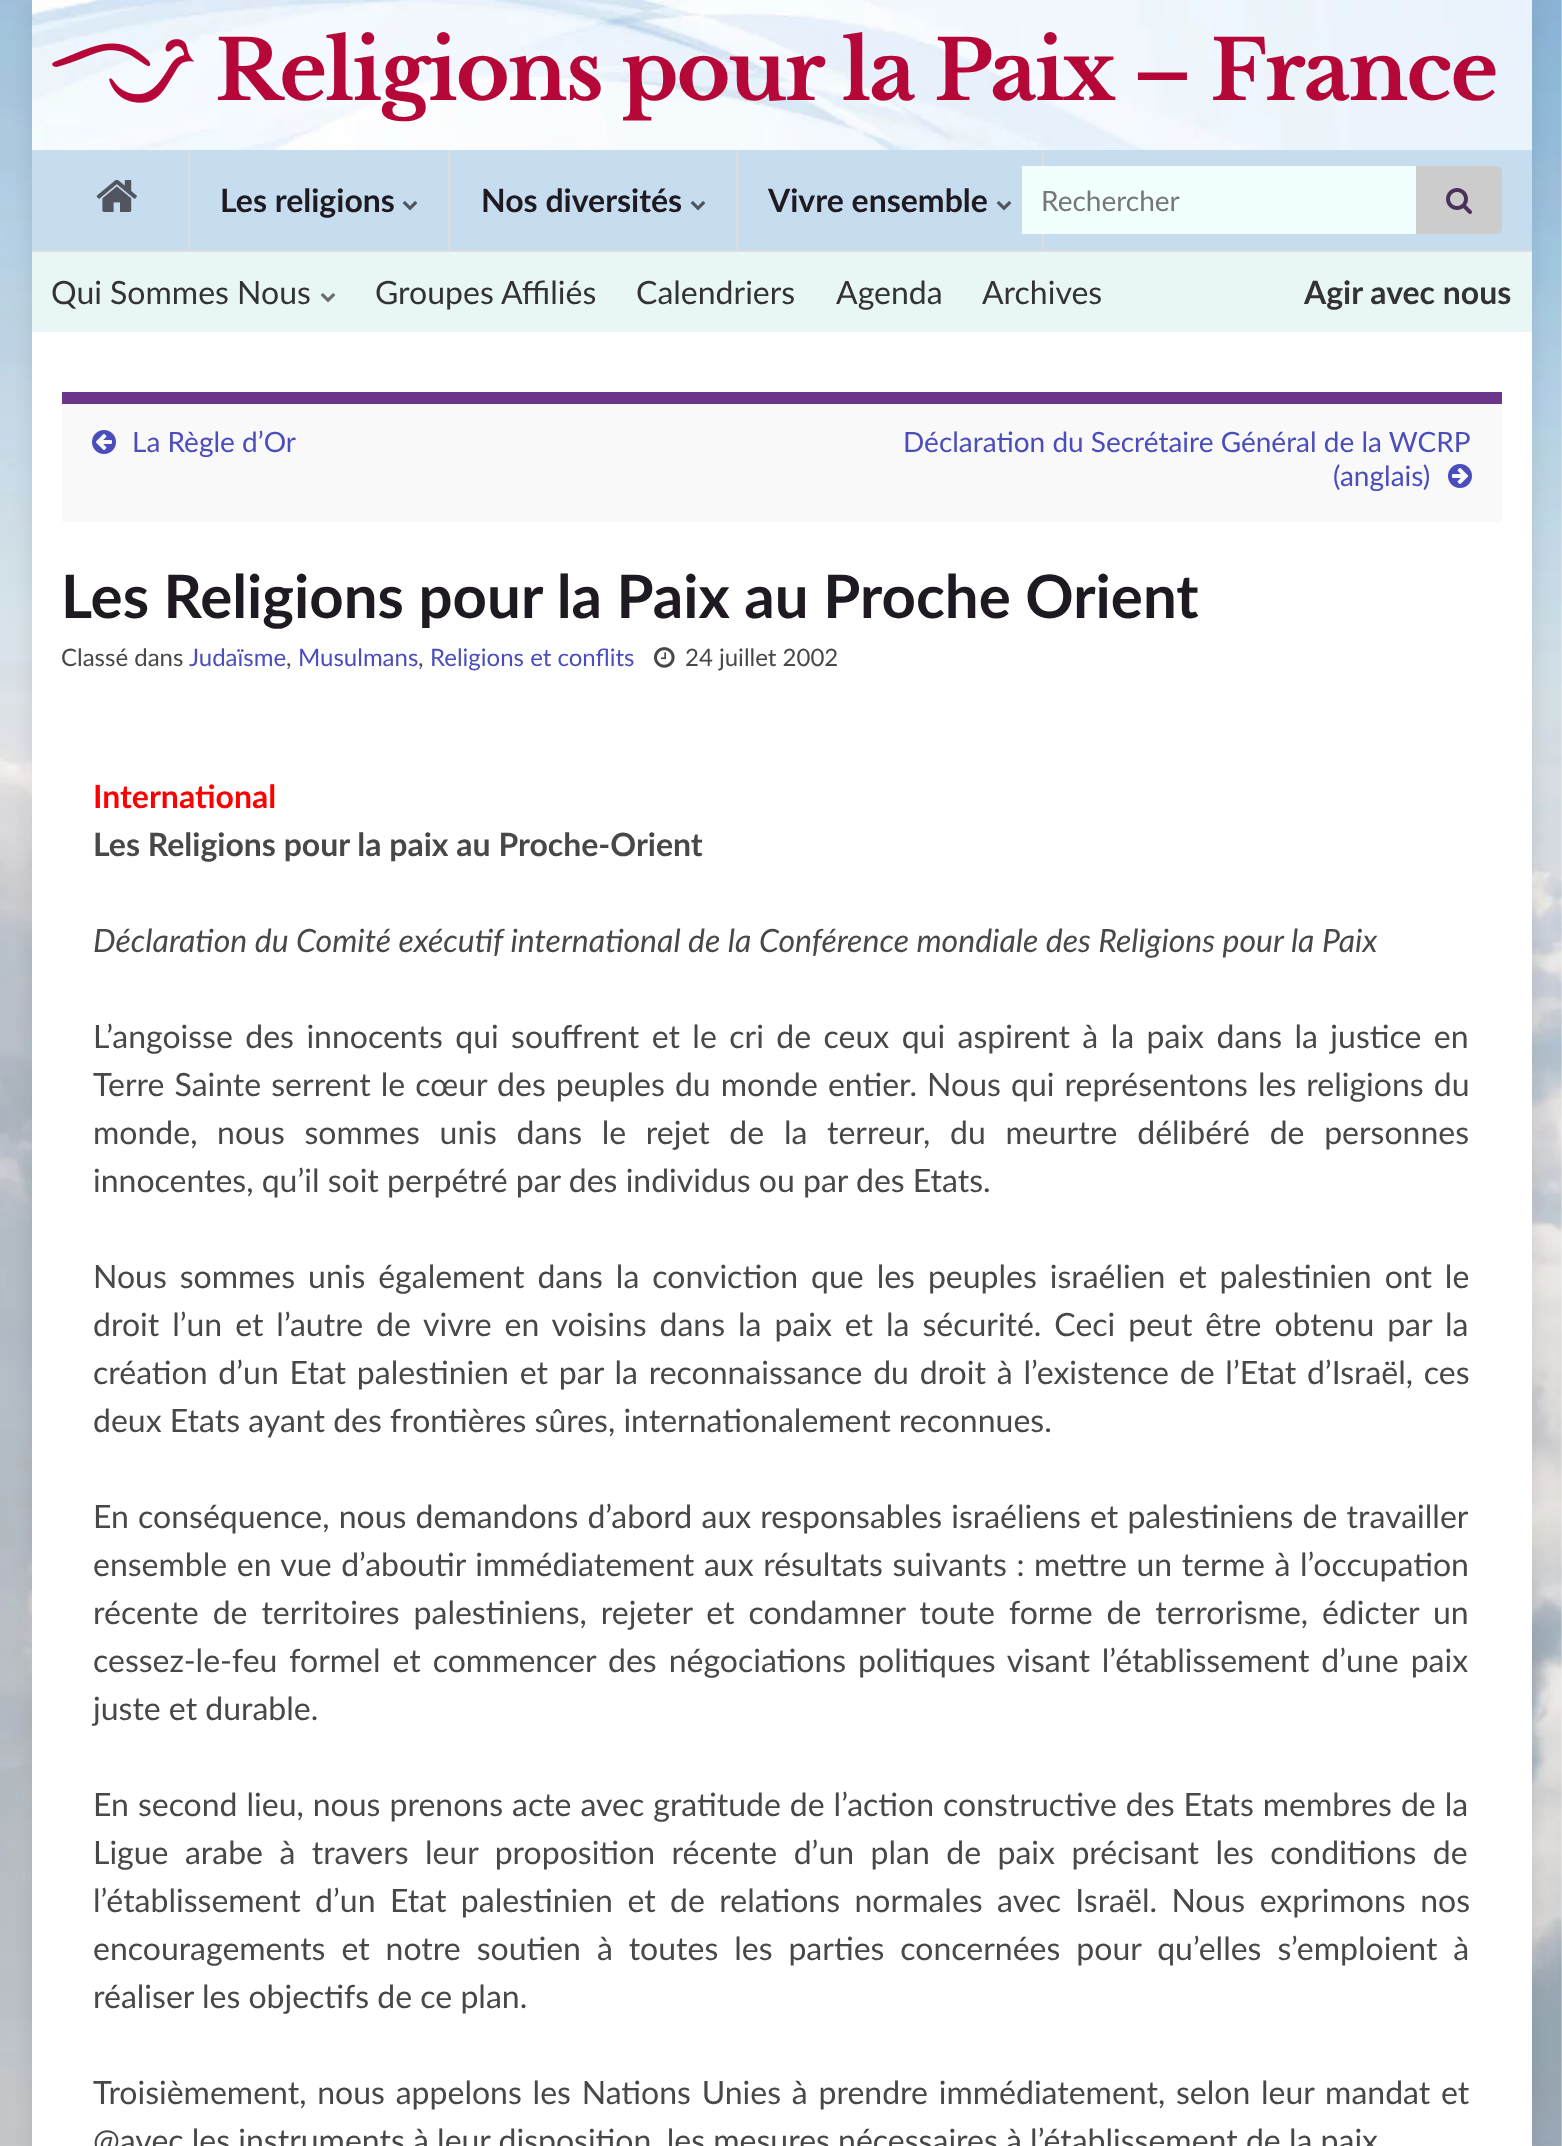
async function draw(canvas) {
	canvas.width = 1562;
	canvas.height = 2146;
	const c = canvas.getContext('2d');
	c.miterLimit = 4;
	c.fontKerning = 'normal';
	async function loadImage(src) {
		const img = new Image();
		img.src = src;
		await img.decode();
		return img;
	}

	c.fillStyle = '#fff';
	c.fillRect(0, 0, 1562, 2146);
	c.drawImage(await loadImage('img1.png'), 0, 0, 1562, 2146);
	c.fillStyle = '#0000001a';
	c.filter = 'blur(10px)';
	c.beginPath();
	c.rect(32, 0, 1500, 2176);
	c.fill();
	c.filter = 'none';
	c.drawImage(await loadImage('img2.png'), 32, 0, 1500, 150);
	c.fillStyle = '#c6ddef';
	c.fillRect(32, 150, 1500, 100);
	c.drawImage(await loadImage('img3.png'), 52, 39, 143, 64);
	c.letterSpacing = '-2px';
	c.font = 'bold 82px Libre Baskerville';
	c.fillStyle = '#b50839';
	c.fillText('Religions pour la Paix – France', 215, 100);
	c.fillStyle = '#ddd';
	c.fillRect(188, 150, 2, 100);
	c.drawImage(await loadImage('img4.png'), 96, 179, 41, 33);
	c.fillRect(448, 150, 2, 100);
	c.letterSpacing = '0px';
	c.font = 'bold 32px Lato';
	c.fillStyle = '#1f1a22';
	c.fillText('Les religions', 220, 212);
	c.drawImage(await loadImage('img5.png'), 402, 201, 16, 10);
	c.fillStyle = '#ddd';
	c.fillRect(736, 150, 2, 100);
	c.fillStyle = '#1f1a22';
	c.fillText('Nos diversités', 481, 212);
	c.drawImage(await loadImage('img5.png'), 690, 201, 16, 10);
	c.fillStyle = '#ddd';
	c.fillRect(1042, 150, 2, 100);
	c.fillStyle = '#1f1a22';
	c.fillText('Vivre ensemble', 768, 212);
	c.drawImage(await loadImage('img5.png'), 996, 201, 16, 10);
	c.fillStyle = '#f1ffff';
	c.fillRect(1022, 166, 394, 68);
	c.font = '28px Lato';
	c.fillStyle = '#777';
	c.fillText('Rechercher', 1041, 211);
	c.fillStyle = '#ccc';
	c.beginPath();
	c.roundRect(1416, 166, 86, 68, [0, 6, 6, 0]);
	c.fill();
	c.drawImage(await loadImage('img6.png'), 1446, 188, 26, 26);
	c.fillStyle = '#e8f7f6';
	c.fillRect(32, 252, 1500, 80);
	c.fillStyle = '#ddd';
	c.fillRect(32, 250, 1500, 2);
	c.font = '32px Lato';
	c.fillStyle = '#333';
	c.fillText('Qui Sommes Nous', 51, 304);
	c.drawImage(await loadImage('img7.png'), 320, 293, 16, 10);
	for (const [text, x, y] of [
		['Groupes Affiliés', 375, 304],
		['Calendriers', 636, 304],
		['Agenda', 836, 304],
		['Archives', 982, 304],
	]) {
		c.fillText(text, x, y);
	}
	c.font = 'bold 32px Lato';
	c.fillText('Agir avec nous', 1304, 304);
	for (const [x, y, w, h, color] of [
		[32, 332, 1500, 1814, '#fff'],
		[62, 404, 1440, 118, '#f9f9f9'],
		[62, 392, 1440, 12, '#6b3589'],
	]) {
		c.fillStyle = color;
		c.fillRect(x, y, w, h);
	}
	c.drawImage(await loadImage('img8.png'), 92, 430, 24, 24);
	c.font = '28px Lato';
	c.fillStyle = '#4b4dbc';
	for (const [text, x, y] of [
		['La Règle d’Or', 132, 452],
		['Déclaration du Secrétaire Général de la WCRP', 903, 452],
		['(anglais)', 1333, 486],
	]) {
		c.fillText(text, x, y);
	}
	c.drawImage(await loadImage('img9.png'), 1448, 464, 24, 24);
	c.font = 'bold 60px Lato';
	c.fillStyle = '#1f1a22';
	c.fillText('Les Religions pour la Paix au Proche Orient', 61, 618);
	c.font = '24px Lato';
	c.fillStyle = '#4a474b';
	c.fillText('Classé dans', 61, 666);
	c.fillStyle = '#4b4dbc';
	c.fillText('Judaïsme', 189, 666);
	c.fillStyle = '#4a474b';
	c.fillText(',', 286, 666);
	c.fillStyle = '#4b4dbc';
	c.fillText('Musulmans', 298, 666);
	c.fillStyle = '#4a474b';
	c.fillText(',', 418, 666);
	c.fillStyle = '#4b4dbc';
	c.fillText('Religions et conflits', 430, 666);
	c.drawImage(await loadImage('img10.png'), 654, 647, 21, 21);
	c.fillStyle = '#4a474b';
	c.fillText('24 juillet 2002', 685, 666);
	c.font = 'bold 32px Lato';
	c.fillStyle = '#f00';
	c.fillText('International', 93, 808);
	c.fillStyle = '#4a474b';
	c.fillText('Les Religions pour la paix au Proche-Orient', 93, 856);
	c.font = 'italic 32px Lato';
	c.fillText('Déclaration du Comité exécutif international de la Conférence mondiale des Religions pour la Paix', 93, 952);
	c.wordSpacing = '4.25px';
	c.font = '32px Lato';
	c.fillText('L’angoisse des innocents qui souffrent et le cri de ceux qui aspirent à la paix dans la justice en', 93, 1048);
	c.wordSpacing = '1.9px';
	c.fillText('Terre Sainte serrent le cœur des peuples du monde entier. Nous qui représentons les religions du', 93, 1096);
	c.wordSpacing = '11.5px';
	c.fillText('monde, nous sommes unis dans le rejet de la terreur, du meurtre délibéré de personnes', 93, 1144);
	c.wordSpacing = '0px';
	c.fillText('innocentes, qu’il soit perpétré par des individus ou par des Etats.', 93, 1192);
	c.wordSpacing = '4.75px';
	c.fillText('Nous sommes unis également dans la conviction que les peuples israélien et palestinien ont le', 93, 1288);
	c.fillText('droit l’un et l’autre de vivre en voisins dans la paix et la sécurité. Ceci peut être obtenu par la', 93, 1336);
	c.wordSpacing = '2.6px';
	c.fillText('création d’un Etat palestinien et par la reconnaissance du droit à l’existence de l’Etat d’Israël, ces', 93, 1384);
	c.wordSpacing = '0px';
	c.fillText('deux Etats ayant des frontières sûres, internationalement reconnues.', 93, 1432);
	c.wordSpacing = '1px';
	c.fillText('En conséquence, nous demandons d’abord aux responsables israéliens et palestiniens de travailler', 93, 1528);
	c.wordSpacing = '1.4px';
	c.fillText('ensemble en vue d’aboutir immédiatement aux résultats suivants : mettre un terme à l’occupation', 93, 1576);
	c.wordSpacing = '5.75px';
	c.fillText('récente de territoires palestiniens, rejeter et condamner toute forme de terrorisme, édicter un', 93, 1624);
	c.wordSpacing = '3.75px';
	c.fillText('cessez-le-feu formel et commencer des négociations politiques visant l’établissement d’une paix', 93, 1672);
	c.wordSpacing = '0px';
	c.fillText('juste et durable.', 93, 1720);
	c.wordSpacing = '0.8px';
	c.fillText('En second lieu, nous prenons acte avec gratitude de l’action constructive des Etats membres de la', 93, 1816);
	c.wordSpacing = '8.25px';
	c.fillText('Ligue arabe à travers leur proposition récente d’un plan de paix précisant les conditions de', 93, 1864);
	c.wordSpacing = '6.25px';
	c.fillText('l’établissement d’un Etat palestinien et de relations normales avec Israël. Nous exprimons nos', 93, 1912);
	c.wordSpacing = '7.75px';
	c.fillText('encouragements et notre soutien à toutes les parties concernées pour qu’elles s’emploient à', 93, 1960);
	c.wordSpacing = '0px';
	c.fillText('réaliser les objectifs de ce plan.', 93, 2008);
	c.wordSpacing = '2.6px';
	c.fillText('Troisièmement, nous appelons les Nations Unies à prendre immédiatement, selon leur mandat et', 93, 2104);
	c.wordSpacing = '0px';
	c.fillText('@avec les instruments à leur disposition, les mesures nécessaires à l’établissement de la paix', 93, 2152);
}

draw(document.querySelector('canvas'));
